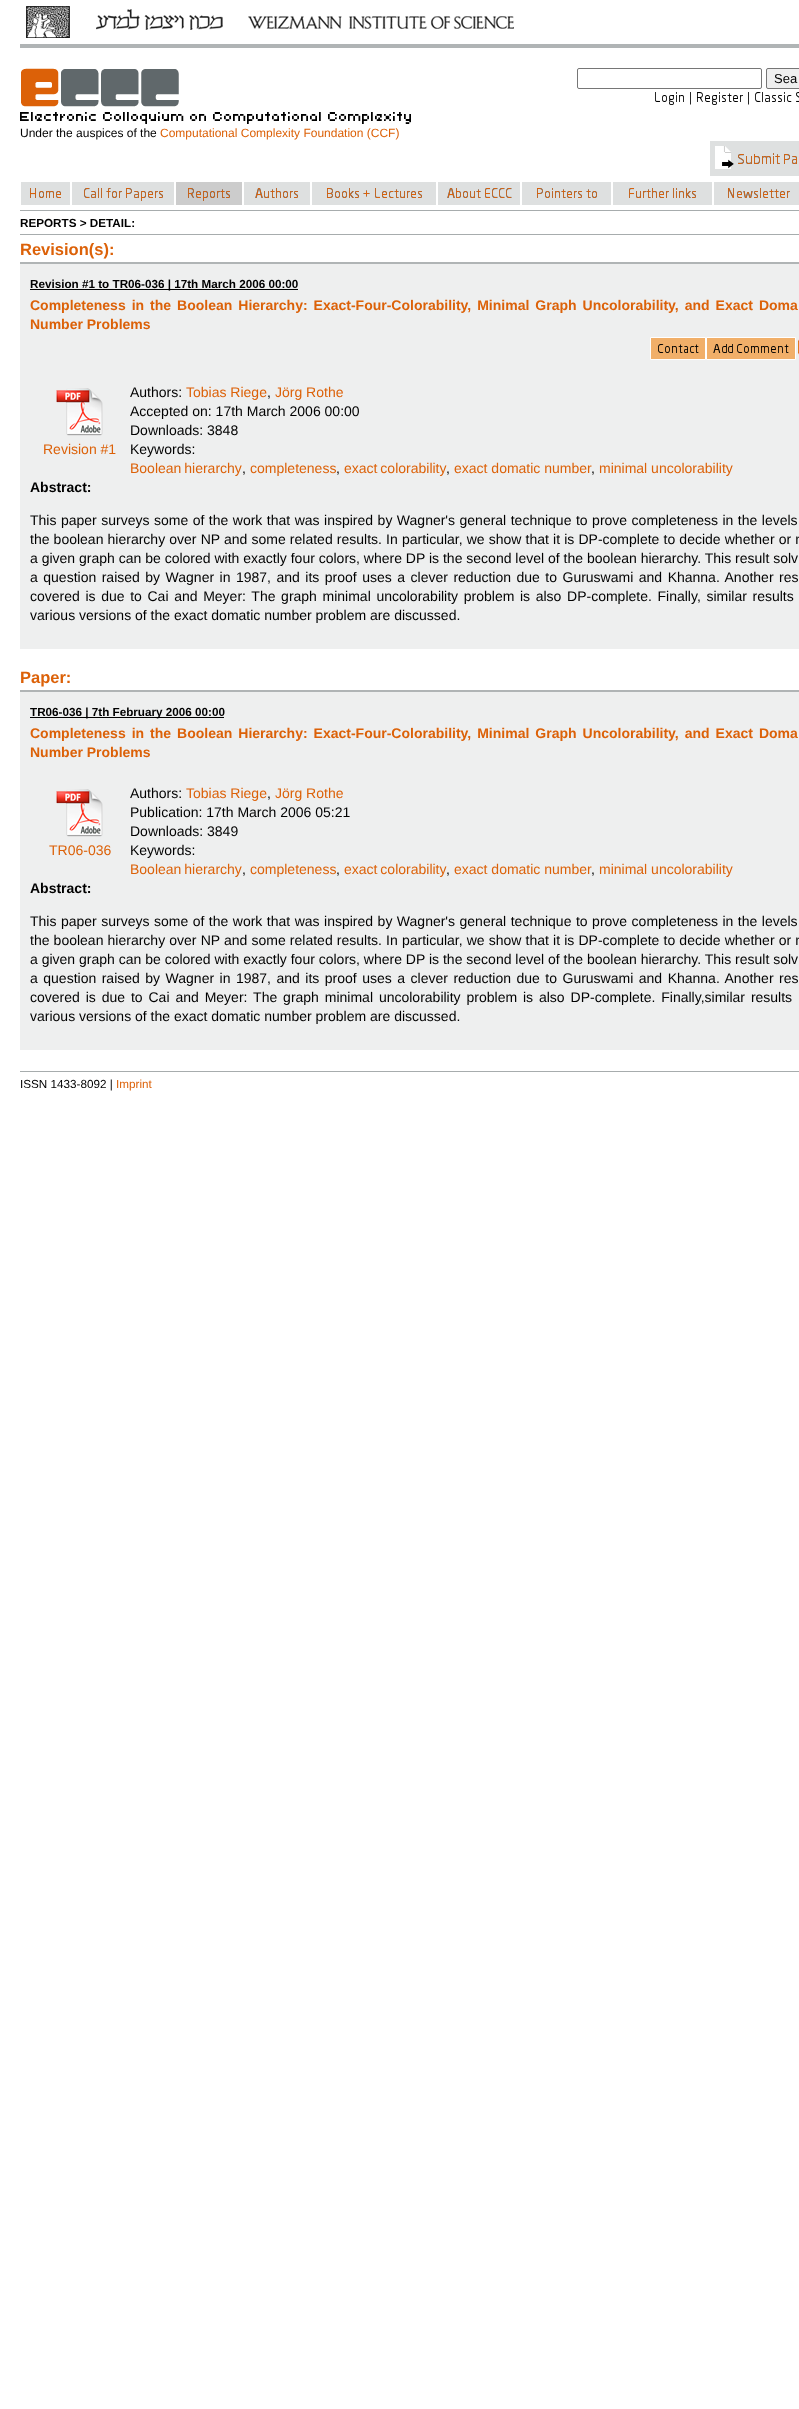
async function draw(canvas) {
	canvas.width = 799;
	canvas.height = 2409;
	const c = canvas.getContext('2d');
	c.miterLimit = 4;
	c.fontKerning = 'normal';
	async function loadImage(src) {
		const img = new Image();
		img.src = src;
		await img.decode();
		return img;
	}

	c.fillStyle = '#fff';
	c.fillRect(0, 0, 799, 2409);
	c.fillStyle = '#b0b4b5';
	c.fillRect(20, 44, 779, 4);
	c.drawImage(await loadImage('img1.png'), 26, 6, 488, 32);
	c.beginPath();
	c.roundRect(577.5, 68.5, 184, 20, 1.5);
	c.strokeStyle = '#767676';
	c.stroke();
	c.fillStyle = '#efefef';
	c.beginPath();
	c.roundRect(766.5, 68.5, 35, 20, 1.5);
	c.fill();
	c.stroke();
	c.font = '13px Liberation Sans';
	c.fillStyle = '#000';
	c.fillText('Sea', 774, 83);
	c.drawImage(await loadImage('img2.png'), 655, 92, 29, 13);
	c.drawImage(await loadImage('img3.png'), 690, 92, 1, 13);
	c.drawImage(await loadImage('img4.png'), 697, 92, 46, 13);
	c.drawImage(await loadImage('img3.png'), 748, 92, 1, 13);
	c.drawImage(await loadImage('img5.png'), 755, 92, 44, 10);
	c.drawImage(await loadImage('img6.png'), 21, 68, 158, 39);
	c.drawImage(await loadImage('img7.png'), 20, 112, 391, 12);
	c.font = '12px Liberation Sans';
	c.fillText('Under the auspices of the', 20, 137);
	c.fillStyle = '#dc6108';
	c.fillText('Computational Complexity Foundation (CCF)', 160, 137);
	c.fillStyle = '#dee0e0';
	c.fillRect(710, 141, 89, 35);
	c.drawImage(await loadImage('img8.png'), 715, 146, 19, 23);
	c.drawImage(await loadImage('img9.png'), 738, 153, 59, 11);
	c.fillRect(21, 182, 49, 23);
	c.drawImage(await loadImage('img10.png'), 30, 188, 31, 10);
	c.fillRect(72, 182, 102, 23);
	c.drawImage(await loadImage('img11.png'), 84, 188, 79, 13);
	c.fillStyle = '#ccc';
	c.fillRect(176, 182, 66, 23);
	c.drawImage(await loadImage('img12.png'), 188, 188, 42, 13);
	c.fillStyle = '#dee0e0';
	c.fillRect(244, 182, 66, 23);
	c.drawImage(await loadImage('img13.png'), 255, 188, 43, 10);
	c.fillRect(312, 182, 124, 23);
	c.drawImage(await loadImage('img14.png'), 327, 188, 95, 10);
	c.fillRect(438, 182, 82, 23);
	c.drawImage(await loadImage('img15.png'), 447, 188, 65, 10);
	c.fillRect(522, 182, 89, 23);
	c.drawImage(await loadImage('img16.png'), 537, 188, 60, 10);
	c.fillRect(613, 182, 99, 23);
	c.drawImage(await loadImage('img17.png'), 629, 188, 67, 10);
	c.fillRect(714, 182, 85, 23);
	c.drawImage(await loadImage('img18.png'), 728, 188, 62, 10);
	c.fillStyle = '#a7acad';
	c.fillRect(20, 210, 779, 1);
	c.font = 'bold 11.7px Liberation Sans';
	c.fillStyle = '#000';
	c.fillText('REPORTS > DETAIL:', 20, 227);
	c.fillStyle = '#a7acad';
	c.fillRect(20, 234, 779, 1);
	c.font = 'bold 16.5px Liberation Sans';
	c.fillStyle = '#dc6108';
	c.fillText('Revision(s):', 20, 255);
	for (const [x, y, w, h, color] of [
		[20, 264, 779, 385, '#eeefef'],
		[20, 262, 779, 2, '#b0b4b5'],
		[30, 289, 268, 1, '#000'],
	]) {
		c.fillStyle = color;
		c.fillRect(x, y, w, h);
	}
	c.font = 'bold 11.7px Liberation Sans';
	c.fillText('Revision #1 to TR06-036 | 17th March 2006 00:00', 30, 288);
	c.wordSpacing = '2.1px';
	c.font = 'bold 14px Liberation Sans';
	c.fillStyle = '#dc6108';
	c.fillText('Completeness in the Boolean Hierarchy: Exact-Four-Colorability, Minimal Graph Uncolorability, and Exact Doma', 30, 310);
	c.wordSpacing = '0px';
	c.fillText('Number Problems', 30, 329);
	c.fillStyle = '#f1af69';
	c.beginPath();
	c.rect(650.5, 337.5, 55, 22);
	c.fill();
	c.strokeStyle = '#fff';
	c.stroke();
	c.drawImage(await loadImage('img19.png'), 658, 344, 41, 9);
	c.beginPath();
	c.rect(706.5, 337.5, 89, 22);
	c.fill();
	c.stroke();
	c.drawImage(await loadImage('img20.png'), 713, 344, 76, 9);
	c.drawImage(await loadImage('img21.png'), 798, 339, 1, 16);
	c.font = '14px Liberation Sans';
	c.fillStyle = '#000';
	c.fillText('Authors:', 130, 397);
	c.fillStyle = '#dc6108';
	c.fillText('Tobias Riege', 186, 397);
	c.fillStyle = '#000';
	c.fillText(',', 267, 397);
	c.fillStyle = '#dc6108';
	c.fillText('Jörg Rothe', 275, 397);
	c.fillStyle = '#000';
	c.fillText('Accepted on: 17th March 2006 00:00', 130, 416);
	c.fillText('Downloads: 3848', 130, 435);
	c.drawImage(await loadImage('img22.png'), 56, 388, 47, 48);
	c.fillStyle = '#dc6108';
	c.fillText('Revision #1', 43, 454);
	c.fillStyle = '#000';
	c.fillText('Keywords:', 130, 454);
	c.wordSpacing = '-1px';
	c.fillStyle = '#dc6108';
	c.fillText('Boolean hierarchy', 130, 473);
	c.wordSpacing = '0px';
	c.fillStyle = '#000';
	c.fillText(',', 242, 473);
	c.fillStyle = '#dc6108';
	c.fillText('completeness', 250, 473);
	c.fillStyle = '#000';
	c.fillText(',', 336, 473);
	c.wordSpacing = '-1px';
	c.fillStyle = '#dc6108';
	c.fillText('exact colorability', 344, 473);
	c.wordSpacing = '0px';
	c.fillStyle = '#000';
	c.fillText(',', 446, 473);
	c.fillStyle = '#dc6108';
	c.fillText('exact domatic number', 454, 473);
	c.fillStyle = '#000';
	c.fillText(',', 591, 473);
	c.fillStyle = '#dc6108';
	c.fillText('minimal uncolorability', 599, 473);
	c.font = 'bold 14px Liberation Sans';
	c.fillStyle = '#000';
	c.fillText('Abstract:', 30, 492);
	c.wordSpacing = '0.6px';
	c.font = '14px Liberation Sans';
	c.fillText('This paper surveys some of the work that was inspired by Wagner\'s general technique to prove completeness in the levels', 30, 525);
	c.wordSpacing = '0.25px';
	c.fillText('the boolean hierarchy over NP and some related results. In particular, we show that it is DP-complete to decide whether or n', 30, 544);
	c.wordSpacing = '0px';
	c.fillText('a given graph can be colored with exactly four colors, where DP is the second level of the boolean hierarchy. This result solv', 30, 563);
	c.wordSpacing = '1.6px';
	c.fillText('a question raised by Wagner in 1987, and its proof uses a clever reduction due to Guruswami and Khanna. Another res', 30, 582);
	c.wordSpacing = '1.75px';
	c.fillText('covered is due to Cai and Meyer: The graph minimal uncolorability problem is also DP-complete. Finally, similar results', 30, 601);
	c.wordSpacing = '0px';
	c.fillText('various versions of the exact domatic number problem are discussed.', 30, 620);
	c.font = 'bold 16.5px Liberation Sans';
	c.fillStyle = '#dc6108';
	c.fillText('Paper:', 20, 683);
	for (const [x, y, w, h, color] of [
		[20, 692, 779, 358, '#eeefef'],
		[20, 690, 779, 2, '#b0b4b5'],
		[30, 717, 194, 1, '#000'],
	]) {
		c.fillStyle = color;
		c.fillRect(x, y, w, h);
	}
	c.font = 'bold 11.7px Liberation Sans';
	c.fillText('TR06-036 | 7th February 2006 00:00', 30, 716);
	c.wordSpacing = '2.1px';
	c.font = 'bold 14px Liberation Sans';
	c.fillStyle = '#dc6108';
	c.fillText('Completeness in the Boolean Hierarchy: Exact-Four-Colorability, Minimal Graph Uncolorability, and Exact Doma', 30, 738);
	c.wordSpacing = '0px';
	c.fillText('Number Problems', 30, 757);
	c.font = '14px Liberation Sans';
	c.fillStyle = '#000';
	c.fillText('Authors:', 130, 798);
	c.fillStyle = '#dc6108';
	c.fillText('Tobias Riege', 186, 798);
	c.fillStyle = '#000';
	c.fillText(',', 267, 798);
	c.fillStyle = '#dc6108';
	c.fillText('Jörg Rothe', 275, 798);
	c.fillStyle = '#000';
	c.fillText('Publication: 17th March 2006 05:21', 130, 817);
	c.fillText('Downloads: 3849', 130, 836);
	c.drawImage(await loadImage('img22.png'), 56, 789, 47, 48);
	c.fillStyle = '#dc6108';
	c.fillText('TR06-036', 49, 855);
	c.fillStyle = '#000';
	c.fillText('Keywords:', 130, 855);
	c.wordSpacing = '-1px';
	c.fillStyle = '#dc6108';
	c.fillText('Boolean hierarchy', 130, 874);
	c.wordSpacing = '0px';
	c.fillStyle = '#000';
	c.fillText(',', 242, 874);
	c.fillStyle = '#dc6108';
	c.fillText('completeness', 250, 874);
	c.fillStyle = '#000';
	c.fillText(',', 336, 874);
	c.wordSpacing = '-1px';
	c.fillStyle = '#dc6108';
	c.fillText('exact colorability', 344, 874);
	c.wordSpacing = '0px';
	c.fillStyle = '#000';
	c.fillText(',', 446, 874);
	c.fillStyle = '#dc6108';
	c.fillText('exact domatic number', 454, 874);
	c.fillStyle = '#000';
	c.fillText(',', 591, 874);
	c.fillStyle = '#dc6108';
	c.fillText('minimal uncolorability', 599, 874);
	c.font = 'bold 14px Liberation Sans';
	c.fillStyle = '#000';
	c.fillText('Abstract:', 30, 893);
	c.wordSpacing = '0.6px';
	c.font = '14px Liberation Sans';
	c.fillText('This paper surveys some of the work that was inspired by Wagner\'s general technique to prove completeness in the levels', 30, 926);
	c.wordSpacing = '0.25px';
	c.fillText('the boolean hierarchy over NP and some related results. In particular, we show that it is DP-complete to decide whether or n', 30, 945);
	c.wordSpacing = '0px';
	c.fillText('a given graph can be colored with exactly four colors, where DP is the second level of the boolean hierarchy. This result solv', 30, 964);
	c.wordSpacing = '1.6px';
	c.fillText('a question raised by Wagner in 1987, and its proof uses a clever reduction due to Guruswami and Khanna. Another res', 30, 983);
	c.wordSpacing = '2px';
	c.fillText('covered is due to Cai and Meyer: The graph minimal uncolorability problem is also DP-complete. Finally,similar results', 30, 1002);
	c.wordSpacing = '0px';
	c.fillText('various versions of the exact domatic number problem are discussed.', 30, 1021);
	c.fillStyle = '#a7acad';
	c.fillRect(20, 1071, 779, 1);
	c.font = '11.7px Liberation Sans';
	c.fillStyle = '#000';
	c.fillText('ISSN 1433-8092 |', 20, 1088);
	c.fillStyle = '#dc6108';
	c.fillText('Imprint', 116, 1088);
}

draw(document.querySelector('canvas'));
